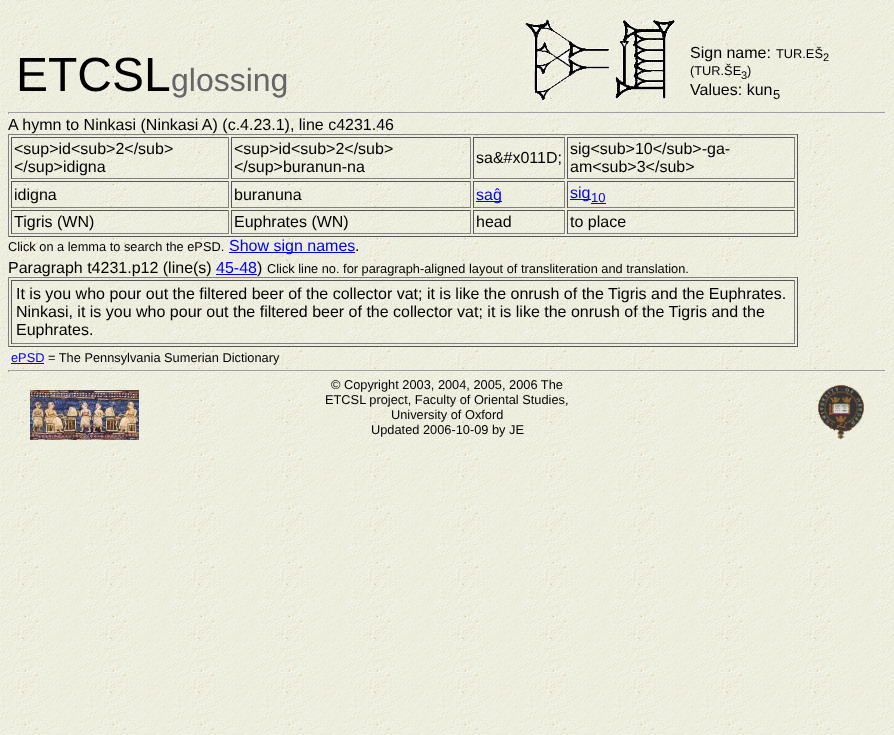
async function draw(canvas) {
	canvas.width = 894;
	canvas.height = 735;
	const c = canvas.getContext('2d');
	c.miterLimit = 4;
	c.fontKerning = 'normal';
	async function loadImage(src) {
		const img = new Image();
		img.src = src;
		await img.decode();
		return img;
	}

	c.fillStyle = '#fff';
	c.fillRect(0, 0, 894, 735);
	c.drawImage(await loadImage('img1.png'), 0, 0, 894, 735);
	c.font = '48px Liberation Sans';
	c.fillStyle = '#000';
	c.fillText('ETCSL', 16, 91);
	c.font = '32px Liberation Sans';
	c.fillStyle = '#666';
	c.fillText('glossing', 171, 91);
	c.drawImage(await loadImage('img2.png'), 525, 19, 84, 82);
	c.drawImage(await loadImage('img3.png'), 615, 20, 60, 79);
	c.font = '16px Liberation Sans';
	c.fillStyle = '#000';
	c.fillText('Sign name:', 690, 58);
	c.font = '12.8px Liberation Sans';
	c.fillText('TUR.EŠ', 776, 58);
	c.font = '11px Liberation Sans';
	c.fillText('2', 823, 61);
	c.font = '12.8px Liberation Sans';
	c.fillText('(TUR.ŠE', 690, 75);
	c.font = '11px Liberation Sans';
	c.fillText('3', 741, 79);
	c.font = '12.8px Liberation Sans';
	c.fillText(')', 747, 75);
	c.font = '16px Liberation Sans';
	c.fillText('Values: kun', 690, 95);
	c.font = '13px Liberation Sans';
	c.fillText('5', 773, 99);
	for (const [x, y, w, h, color] of [
		[8, 112, 878, 1, '#9f9f9f'],
		[885, 112, 1, 2, '#eee'],
		[8, 113, 878, 1, '#eee'],
		[8, 112, 1, 2, '#9f9f9f'],
	]) {
		c.fillStyle = color;
		c.fillRect(x, y, w, h);
	}
	c.font = '16px Liberation Sans';
	c.fillStyle = '#000';
	c.fillText('A hymn to Ninkasi (Ninkasi A) (c.4.23.1), line c4231.46', 8, 130);
	for (const [x, y, w, h, color] of [
		[8, 134, 790, 1, '#808080'],
		[797, 134, 1, 103, '#555'],
		[8, 236, 790, 1, '#555'],
		[8, 134, 1, 103, '#808080'],
		[11, 137, 218, 1, '#555'],
		[228, 137, 1, 42, '#808080'],
		[11, 178, 218, 1, '#808080'],
		[11, 137, 1, 42, '#555'],
	]) {
		c.fillStyle = color;
		c.fillRect(x, y, w, h);
	}
	c.fillStyle = '#000';
	c.fillText('<sup>id<sub>2<\/sub>', 14, 154);
	c.fillText('<\/sup>idigna', 14, 172);
	for (const [x, y, w, h, color] of [
		[231, 137, 240, 1, '#555'],
		[470, 137, 1, 42, '#808080'],
		[231, 178, 240, 1, '#808080'],
		[231, 137, 1, 42, '#555'],
	]) {
		c.fillStyle = color;
		c.fillRect(x, y, w, h);
	}
	c.fillStyle = '#000';
	c.fillText('<sup>id<sub>2<\/sub>', 234, 154);
	c.fillText('<\/sup>buranun-na', 234, 172);
	for (const [x, y, w, h, color] of [
		[473, 137, 92, 1, '#555'],
		[564, 137, 1, 42, '#808080'],
		[473, 178, 92, 1, '#808080'],
		[473, 137, 1, 42, '#555'],
	]) {
		c.fillStyle = color;
		c.fillRect(x, y, w, h);
	}
	c.fillStyle = '#000';
	c.fillText('sa&#x011D;', 476, 163);
	for (const [x, y, w, h, color] of [
		[567, 137, 228, 1, '#555'],
		[794, 137, 1, 42, '#808080'],
		[567, 178, 228, 1, '#808080'],
		[567, 137, 1, 42, '#555'],
	]) {
		c.fillStyle = color;
		c.fillRect(x, y, w, h);
	}
	c.fillStyle = '#000';
	c.fillText('sig<sub>10<\/sub>-ga-', 570, 154);
	c.fillText('am<sub>3<\/sub>', 570, 172);
	for (const [x, y, w, h, color] of [
		[11, 181, 218, 1, '#555'],
		[228, 181, 1, 27, '#808080'],
		[11, 207, 218, 1, '#808080'],
		[11, 181, 1, 27, '#555'],
	]) {
		c.fillStyle = color;
		c.fillRect(x, y, w, h);
	}
	c.fillStyle = '#000';
	c.fillText('idigna', 14, 200);
	for (const [x, y, w, h, color] of [
		[231, 181, 240, 1, '#555'],
		[470, 181, 1, 27, '#808080'],
		[231, 207, 240, 1, '#808080'],
		[231, 181, 1, 27, '#555'],
	]) {
		c.fillStyle = color;
		c.fillRect(x, y, w, h);
	}
	c.fillStyle = '#000';
	c.fillText('buranuna', 234, 200);
	for (const [x, y, w, h, color] of [
		[473, 181, 92, 1, '#555'],
		[564, 181, 1, 27, '#808080'],
		[473, 207, 92, 1, '#808080'],
		[473, 181, 1, 27, '#555'],
		[476, 201, 26, 1, '#00e'],
	]) {
		c.fillStyle = color;
		c.fillRect(x, y, w, h);
	}
	c.fillText('saĝ', 476, 200);
	for (const [x, y, w, h, color] of [
		[567, 181, 228, 1, '#555'],
		[794, 181, 1, 27, '#808080'],
		[567, 207, 228, 1, '#808080'],
		[567, 181, 1, 27, '#555'],
		[570, 199, 21, 1, '#00e'],
	]) {
		c.fillStyle = color;
		c.fillRect(x, y, w, h);
	}
	c.fillText('sig', 570, 198);
	c.font = '13px Liberation Sans';
	c.fillText('10', 591, 202);
	for (const [x, y, w, h, color] of [
		[591, 203, 15, 1, '#00e'],
		[11, 210, 218, 1, '#555'],
		[228, 210, 1, 24, '#808080'],
		[11, 233, 218, 1, '#808080'],
		[11, 210, 1, 24, '#555'],
	]) {
		c.fillStyle = color;
		c.fillRect(x, y, w, h);
	}
	c.font = '16px Liberation Sans';
	c.fillStyle = '#000';
	c.fillText('Tigris (WN)', 14, 227);
	for (const [x, y, w, h, color] of [
		[231, 210, 240, 1, '#555'],
		[470, 210, 1, 24, '#808080'],
		[231, 233, 240, 1, '#808080'],
		[231, 210, 1, 24, '#555'],
	]) {
		c.fillStyle = color;
		c.fillRect(x, y, w, h);
	}
	c.fillStyle = '#000';
	c.fillText('Euphrates (WN)', 234, 227);
	for (const [x, y, w, h, color] of [
		[473, 210, 92, 1, '#555'],
		[564, 210, 1, 24, '#808080'],
		[473, 233, 92, 1, '#808080'],
		[473, 210, 1, 24, '#555'],
	]) {
		c.fillStyle = color;
		c.fillRect(x, y, w, h);
	}
	c.fillStyle = '#000';
	c.fillText('head', 476, 227);
	for (const [x, y, w, h, color] of [
		[567, 210, 228, 1, '#555'],
		[794, 210, 1, 24, '#808080'],
		[567, 233, 228, 1, '#808080'],
		[567, 210, 1, 24, '#555'],
	]) {
		c.fillStyle = color;
		c.fillRect(x, y, w, h);
	}
	c.fillStyle = '#000';
	c.fillText('to place', 570, 227);
	c.font = '12.8px Liberation Sans';
	c.fillText('Click on a lemma to search the ePSD.', 8, 251);
	c.fillStyle = '#00e';
	c.fillRect(229, 252, 126, 1);
	c.font = '16px Liberation Sans';
	c.fillText('Show sign names', 229, 251);
	c.fillStyle = '#000';
	c.fillText('.', 355, 251);
	c.fillText('Paragraph t4231.p12 (line(s)', 8, 273);
	c.fillStyle = '#00e';
	c.fillText('45-48', 216, 273);
	c.fillRect(216, 274, 41, 1);
	c.fillStyle = '#000';
	c.fillText(')', 257, 273);
	c.font = '12.8px Liberation Sans';
	c.fillText('Click line no. for paragraph-aligned layout of transliteration and translation.', 267, 273);
	for (const [x, y, w, h, color] of [
		[8, 277, 790, 1, '#808080'],
		[797, 277, 1, 70, '#555'],
		[8, 346, 790, 1, '#555'],
		[8, 277, 1, 70, '#808080'],
		[11, 280, 784, 1, '#555'],
		[794, 280, 1, 64, '#808080'],
		[11, 343, 784, 1, '#808080'],
		[11, 280, 1, 64, '#555'],
	]) {
		c.fillStyle = color;
		c.fillRect(x, y, w, h);
	}
	c.font = '16px Liberation Sans';
	c.fillStyle = '#000';
	for (const [text, x, y] of [
		['It is you who pour out the filtered beer of the collector vat; it is like the onrush of the Tigris and the Euphrates.', 16, 299],
		['Ninkasi, it is you who pour out the filtered beer of the collector vat; it is like the onrush of the Tigris and the', 16, 317],
		['Euphrates.', 16, 335],
	]) {
		c.fillText(text, x, y);
	}
	c.font = '12.8px Liberation Sans';
	c.fillStyle = '#00e';
	c.fillText('ePSD', 11, 362);
	c.fillRect(11, 363, 33, 1);
	c.fillStyle = '#000';
	c.fillText('= The Pennsylvania Sumerian Dictionary', 48, 362);
	for (const [x, y, w, h, color] of [
		[8, 370, 878, 1, '#9f9f9f'],
		[885, 370, 1, 2, '#eee'],
		[8, 371, 878, 1, '#eee'],
		[8, 370, 1, 2, '#9f9f9f'],
	]) {
		c.fillStyle = color;
		c.fillRect(x, y, w, h);
	}
	c.drawImage(await loadImage('img4.png'), 30, 390, 109, 50);
	c.fillStyle = '#000';
	for (const [text, x, y] of [
		['© Copyright 2003, 2004, 2005, 2006 The', 331, 389],
		['ETCSL project, Faculty of Oriental Studies,', 325, 404],
		['University of Oxford', 391, 419],
		['Updated 2006-10-09 by JE', 371, 434],
	]) {
		c.fillText(text, x, y);
	}
	c.drawImage(await loadImage('img5.png'), 818, 385, 46, 55);
}

draw(document.querySelector('canvas'));
